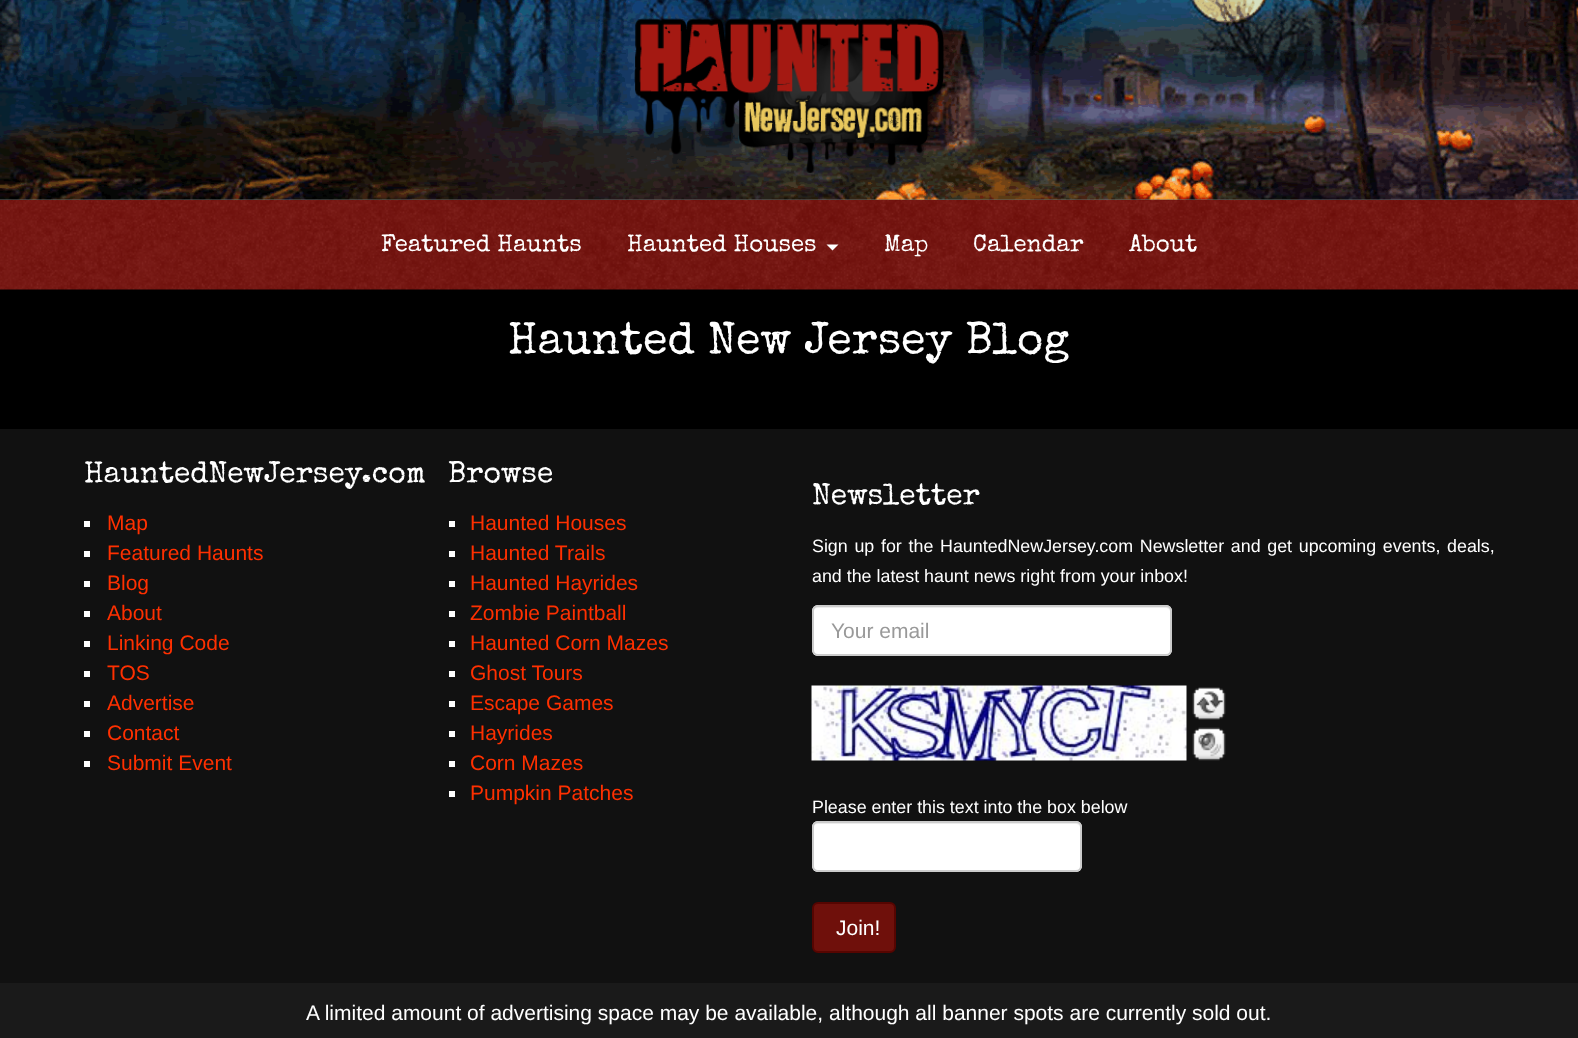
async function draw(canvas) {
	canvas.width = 1578;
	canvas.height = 1038;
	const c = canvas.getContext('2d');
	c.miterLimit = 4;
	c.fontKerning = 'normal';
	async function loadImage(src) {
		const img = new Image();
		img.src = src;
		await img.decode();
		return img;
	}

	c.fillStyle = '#000';
	c.fillRect(0, 0, 1578, 1038);
	c.fillStyle = '#666';
	c.fillRect(0, 199, 1578, 1);
	c.drawImage(await loadImage('img1.png'), 0, 0, 1578, 200);
	c.drawImage(await loadImage('img2.png'), 634, 18, 310, 155);
	c.drawImage(await loadImage('img3.png'), 0, 200, 1578, 90);
	c.font = '24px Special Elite';
	c.fillStyle = '#fff';
	c.fillText('Featured Haunts', 381, 251);
	c.fillText('Haunted Houses', 627, 251);
	c.beginPath();
	c.moveTo(826.5, 244.5);
	c.lineTo(838.5, 244.5);
	c.lineTo(832.5, 250.5);
	c.closePath();
	c.fill();
	for (const [text, x, y] of [
		['Map', 884, 251],
		['Calendar', 973, 251],
		['About', 1129, 251],
	]) {
		c.fillText(text, x, y);
	}
	c.font = '45px Special Elite';
	c.fillText('Haunted New Jersey Blog', 508, 353);
	c.fillStyle = '#111';
	c.fillRect(0, 429, 1578, 554);
	c.font = '30px Special Elite';
	c.fillStyle = '#fff';
	c.fillText('HauntedNewJersey.com', 84, 482);
	c.fillRect(84, 521, 6, 6);
	c.font = '21px Liberation Sans';
	c.fillStyle = '#ff3000';
	c.fillText('Map', 107, 530);
	c.fillStyle = '#fff';
	c.fillRect(84, 551, 6, 6);
	c.fillStyle = '#ff3000';
	c.fillText('Featured Haunts', 107, 560);
	c.fillStyle = '#fff';
	c.fillRect(84, 581, 6, 6);
	c.fillStyle = '#ff3000';
	c.fillText('Blog', 107, 590);
	c.fillStyle = '#fff';
	c.fillRect(84, 611, 6, 6);
	c.fillStyle = '#ff3000';
	c.fillText('About', 107, 620);
	c.fillStyle = '#fff';
	c.fillRect(84, 641, 6, 6);
	c.fillStyle = '#ff3000';
	c.fillText('Linking Code', 107, 650);
	c.fillStyle = '#fff';
	c.fillRect(84, 671, 6, 6);
	c.fillStyle = '#ff3000';
	c.fillText('TOS', 107, 680);
	c.fillStyle = '#fff';
	c.fillRect(84, 701, 6, 6);
	c.fillStyle = '#ff3000';
	c.fillText('Advertise', 107, 710);
	c.fillStyle = '#fff';
	c.fillRect(84, 731, 6, 6);
	c.fillStyle = '#ff3000';
	c.fillText('Contact', 107, 740);
	c.fillStyle = '#fff';
	c.fillRect(84, 761, 6, 6);
	c.fillStyle = '#ff3000';
	c.fillText('Submit Event', 107, 770);
	c.font = '30px Special Elite';
	c.fillStyle = '#fff';
	c.fillText('Browse', 448, 482);
	c.fillRect(449, 521, 6, 6);
	c.font = '21px Liberation Sans';
	c.fillStyle = '#ff3000';
	c.fillText('Haunted Houses', 470, 530);
	c.fillStyle = '#fff';
	c.fillRect(449, 551, 6, 6);
	c.fillStyle = '#ff3000';
	c.fillText('Haunted Trails', 470, 560);
	c.fillStyle = '#fff';
	c.fillRect(449, 581, 6, 6);
	c.fillStyle = '#ff3000';
	c.fillText('Haunted Hayrides', 470, 590);
	c.fillStyle = '#fff';
	c.fillRect(449, 611, 6, 6);
	c.fillStyle = '#ff3000';
	c.fillText('Zombie Paintball', 470, 620);
	c.fillStyle = '#fff';
	c.fillRect(449, 641, 6, 6);
	c.fillStyle = '#ff3000';
	c.fillText('Haunted Corn Mazes', 470, 650);
	c.fillStyle = '#fff';
	c.fillRect(449, 671, 6, 6);
	c.fillStyle = '#ff3000';
	c.fillText('Ghost Tours', 470, 680);
	c.fillStyle = '#fff';
	c.fillRect(449, 701, 6, 6);
	c.fillStyle = '#ff3000';
	c.fillText('Escape Games', 470, 710);
	c.fillStyle = '#fff';
	c.fillRect(449, 731, 6, 6);
	c.fillStyle = '#ff3000';
	c.fillText('Hayrides', 470, 740);
	c.fillStyle = '#fff';
	c.fillRect(449, 761, 6, 6);
	c.fillStyle = '#ff3000';
	c.fillText('Corn Mazes', 470, 770);
	c.fillStyle = '#fff';
	c.fillRect(449, 791, 6, 6);
	c.fillStyle = '#ff3000';
	c.fillText('Pumpkin Patches', 470, 800);
	c.font = '30px Special Elite';
	c.fillStyle = '#fff';
	c.fillText('Newsletter', 812, 504);
	c.wordSpacing = '1.75px';
	c.font = '17.85px Liberation Sans';
	c.fillText('Sign up for the HauntedNewJersey.com Newsletter and get upcoming events, deals,', 812, 552);
	c.wordSpacing = '0px';
	c.fillText('and the latest haunt news right from your inbox!', 812, 582);
	c.beginPath();
	c.roundRect(812, 605, 360, 51, 6);
	c.fill();
	c.fillStyle = '#ececec';
	c.beginPath();
	c.moveTo(818, 608);
	c.lineTo(1166, 608);
	c.bezierCurveTo(1168, 608, 1170, 610, 1170, 612);
	c.bezierCurveTo(1170, 609, 1168, 606, 1165, 606);
	c.lineTo(818, 606);
	c.bezierCurveTo(815, 606, 813, 609, 813, 612);
	c.bezierCurveTo(813, 610, 815, 608, 818, 608);
	c.closePath();
	c.fill();
	c.beginPath();
	c.roundRect(813, 606, 358, 49, 5);
	c.strokeStyle = '#ccc';
	c.lineWidth = 2;
	c.stroke();
	c.font = '21px Liberation Sans';
	c.fillStyle = '#999';
	c.fillText('Your email', 831, 638);
	c.drawImage(await loadImage('img4.png'), 811, 685, 376, 76);
	c.drawImage(await loadImage('img5.png'), 1192, 687, 34, 33);
	c.drawImage(await loadImage('img6.png'), 1192, 727, 34, 34);
	c.font = '17.85px Liberation Sans';
	c.fillStyle = '#fff';
	c.fillText('Please enter this text into the box below', 812, 813);
	c.beginPath();
	c.roundRect(812, 821, 270, 51, 6);
	c.fill();
	c.fillStyle = '#ececec';
	c.beginPath();
	c.moveTo(818, 824);
	c.lineTo(1076, 824);
	c.bezierCurveTo(1078, 824, 1080, 826, 1080, 828);
	c.bezierCurveTo(1080, 825, 1078, 822, 1075, 822);
	c.lineTo(818, 822);
	c.bezierCurveTo(815, 822, 813, 825, 813, 828);
	c.bezierCurveTo(813, 826, 815, 824, 818, 824);
	c.closePath();
	c.fill();
	c.beginPath();
	c.roundRect(813, 822, 268, 49, 5);
	c.stroke();
	c.fillStyle = '#6f100b';
	c.beginPath();
	c.roundRect(813, 903, 82, 49, 5);
	c.fill();
	c.strokeStyle = '#560501';
	c.stroke();
	c.font = '21px Liberation Sans';
	c.fillStyle = '#fff';
	c.fillText('Join!', 836, 935);
	c.fillStyle = '#1a1a1a';
	c.fillRect(0, 983, 1578, 55);
	c.fillStyle = '#fff';
	c.fillText('A limited amount of advertising space may be available, although all banner spots are currently sold out.', 306, 1020);
}

draw(document.querySelector('canvas'));
